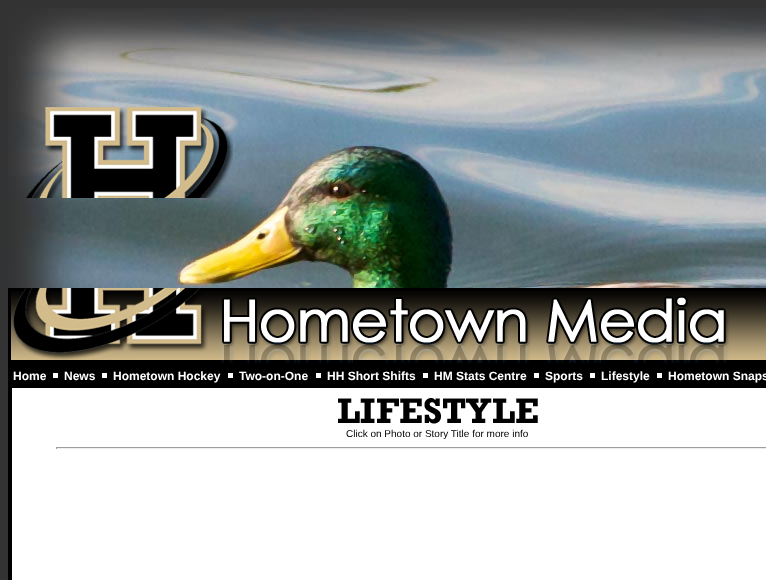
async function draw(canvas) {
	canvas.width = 766;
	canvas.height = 580;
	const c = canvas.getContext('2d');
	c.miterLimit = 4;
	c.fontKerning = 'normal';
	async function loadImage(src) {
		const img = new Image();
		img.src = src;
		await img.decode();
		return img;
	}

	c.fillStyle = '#333';
	c.fillRect(0, 0, 766, 580);
	c.drawImage(await loadImage('img1.png'), 8, 8, 758, 280);
	c.drawImage(await loadImage('img2.png'), 25, 107, 208, 91);
	c.drawImage(await loadImage('img3.png'), 8, 288, 758, 75);
	c.fillStyle = '#000';
	c.fillRect(8, 363, 758, 25);
	c.font = 'bold 12px Liberation Sans';
	c.fillStyle = '#fff';
	c.fillText('Home', 13, 380);
	c.fillRect(53, 373, 5, 5);
	c.fillText('News', 64, 380);
	c.fillRect(102, 373, 5, 5);
	c.fillText('Hometown Hockey', 113, 380);
	c.fillRect(228, 373, 5, 5);
	c.fillText('Two-on-One', 239, 380);
	c.fillRect(316, 373, 5, 5);
	c.fillText('HH Short Shifts', 327, 380);
	c.fillRect(423, 373, 5, 5);
	c.fillText('HM Stats Centre', 434, 380);
	c.fillRect(534, 373, 5, 5);
	c.fillText('Sports', 545, 380);
	c.fillRect(590, 373, 5, 5);
	c.fillText('Lifestyle', 601, 380);
	c.fillRect(657, 373, 5, 5);
	c.fillText('Hometown Snaps', 668, 380);
	c.fillStyle = '#000';
	c.fillRect(8, 388, 4, 192);
	c.fillStyle = '#fff';
	c.fillRect(12, 388, 754, 192);
	c.drawImage(await loadImage('img4.png'), 338, 398, 200, 26);
	c.font = '10px Liberation Sans';
	c.fillStyle = '#000';
	c.fillText('Click on Photo or Story Title for more info', 346, 437);
	for (const [x, y, w, h, color] of [
		[56, 447, 710, 1, '#9f9f9f'],
		[56, 448, 710, 1, '#eee'],
		[56, 447, 1, 2, '#9f9f9f'],
	]) {
		c.fillStyle = color;
		c.fillRect(x, y, w, h);
	}
}

draw(document.querySelector('canvas'));
